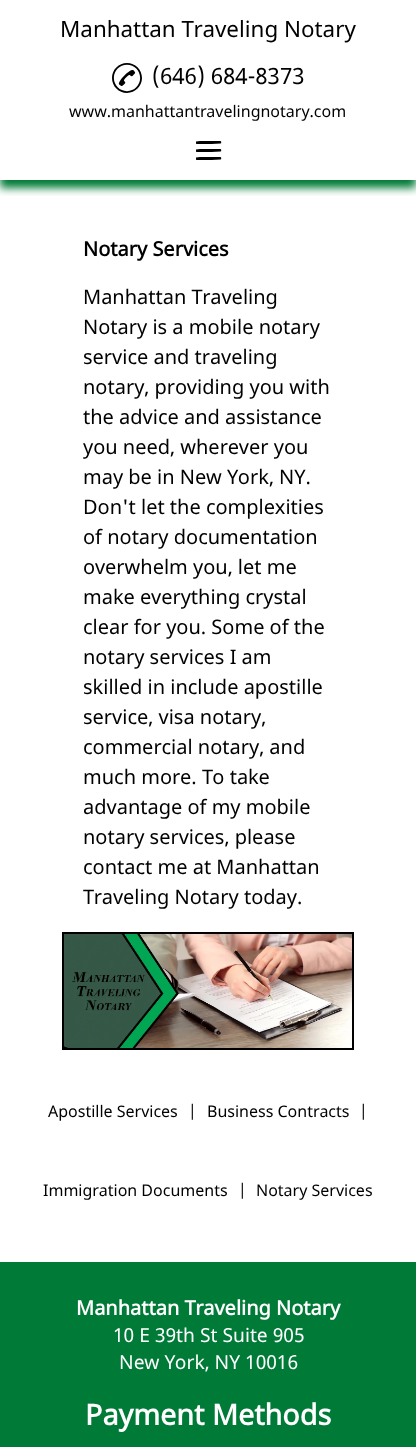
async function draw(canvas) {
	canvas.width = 416;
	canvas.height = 1447;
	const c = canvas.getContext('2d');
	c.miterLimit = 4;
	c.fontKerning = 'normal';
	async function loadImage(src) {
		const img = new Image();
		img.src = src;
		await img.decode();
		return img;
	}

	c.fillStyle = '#fff';
	c.fillRect(0, 0, 416, 1447);
	c.save();
	c.beginPath();
	c.rect(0, 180, 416, 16);
	c.clip();
	c.fillStyle = '#007a37';
	c.filter = 'blur(4px)';
	c.beginPath();
	c.rect(0, 8, 416, 180);
	c.fill();
	c.filter = 'none';
	c.restore();
	c.font = '22.4px Noto Sans';
	c.fillStyle = '#000';
	c.fillText('Manhattan Traveling Notary', 60, 37);
	c.drawImage(await loadImage('img1.png'), 112, 63, 30, 30);
	c.fillText('(646) 684-8373', 152, 84);
	c.font = '16px Noto Sans';
	c.fillText('www.manhattantravelingnotary.com', 69, 117);
	c.beginPath();
	c.moveTo(200, 141);
	c.lineTo(220.5, 141);
	c.bezierCurveTo(221.5, 141.5, 221.5, 143.5, 220.5, 143.5);
	c.lineTo(211.5, 144);
	c.lineTo(196.5, 144);
	c.bezierCurveTo(196, 143.5, 196, 143.5, 196, 142.5);
	c.lineTo(196, 141.5);
	c.closePath();
	c.moveTo(200, 149);
	c.lineTo(220.5, 149);
	c.bezierCurveTo(221.5, 149.5, 221.5, 151.5, 220.5, 151.5);
	c.lineTo(211.5, 152);
	c.lineTo(196.5, 152);
	c.bezierCurveTo(196, 151.5, 196, 151.5, 196, 150.5);
	c.lineTo(196, 149.5);
	c.closePath();
	c.moveTo(200, 157);
	c.lineTo(220.5, 157);
	c.bezierCurveTo(221.5, 157.5, 221.5, 159.5, 220.5, 159.5);
	c.lineTo(211.5, 160);
	c.lineTo(196.5, 160);
	c.bezierCurveTo(196, 159.5, 196, 159.5, 196, 158.5);
	c.lineTo(196, 157.5);
	c.closePath();
	c.fill();
	c.font = 'bold 20px Noto Sans';
	c.fillText('Notary Services', 83, 256);
	c.font = '20px Noto Sans';
	for (const [text, x, y] of [
		['Manhattan Traveling', 83, 304],
		['Notary is a mobile notary', 83, 334],
		['service and traveling', 83, 364],
		['notary, providing you with', 83, 394],
		['the advice and assistance', 83, 424],
		['you need, wherever you', 83, 454],
		['may be in New York, NY.', 83, 484],
		['Don\'t let the complexities', 83, 514],
		['of notary documentation', 83, 544],
		['overwhelm you, let me', 83, 574],
		['make everything crystal', 83, 604],
		['clear for you. Some of the', 83, 634],
		['notary services I am', 83, 664],
		['skilled in include apostille', 83, 694],
		['service, visa notary,', 83, 724],
		['commercial notary, and', 83, 754],
		['much more. To take', 83, 784],
		['advantage of my mobile', 83, 814],
		['notary services, please', 83, 844],
		['contact me at Manhattan', 83, 874],
		['Traveling Notary today.', 83, 904],
	]) {
		c.fillText(text, x, y);
	}
	c.drawImage(await loadImage('img2.png'), 62, 932, 292, 118);
	c.font = '16px Noto Sans';
	for (const [text, x, y] of [
		['Apostille Services', 48, 1117],
		['|', 188, 1117],
		['Business Contracts', 207, 1117],
		['|', 359, 1117],
		['Immigration Documents', 43, 1196],
		['|', 238, 1196],
		['Notary Services', 256, 1196],
	]) {
		c.fillText(text, x, y);
	}
	c.fillStyle = '#007a37';
	c.fillRect(0, 1262, 416, 185);
	c.font = 'bold 20px Noto Sans';
	c.fillStyle = '#fff';
	c.fillText('Manhattan Traveling Notary', 76, 1315);
	c.font = '19.25px Noto Sans';
	c.fillText('10 E 39th St Suite 905', 113, 1342);
	c.fillText('New York, NY 10016', 119, 1369);
	c.font = 'bold 28.75px Noto Sans';
	c.fillText('Payment Methods', 85, 1425);
}

draw(document.querySelector('canvas'));
